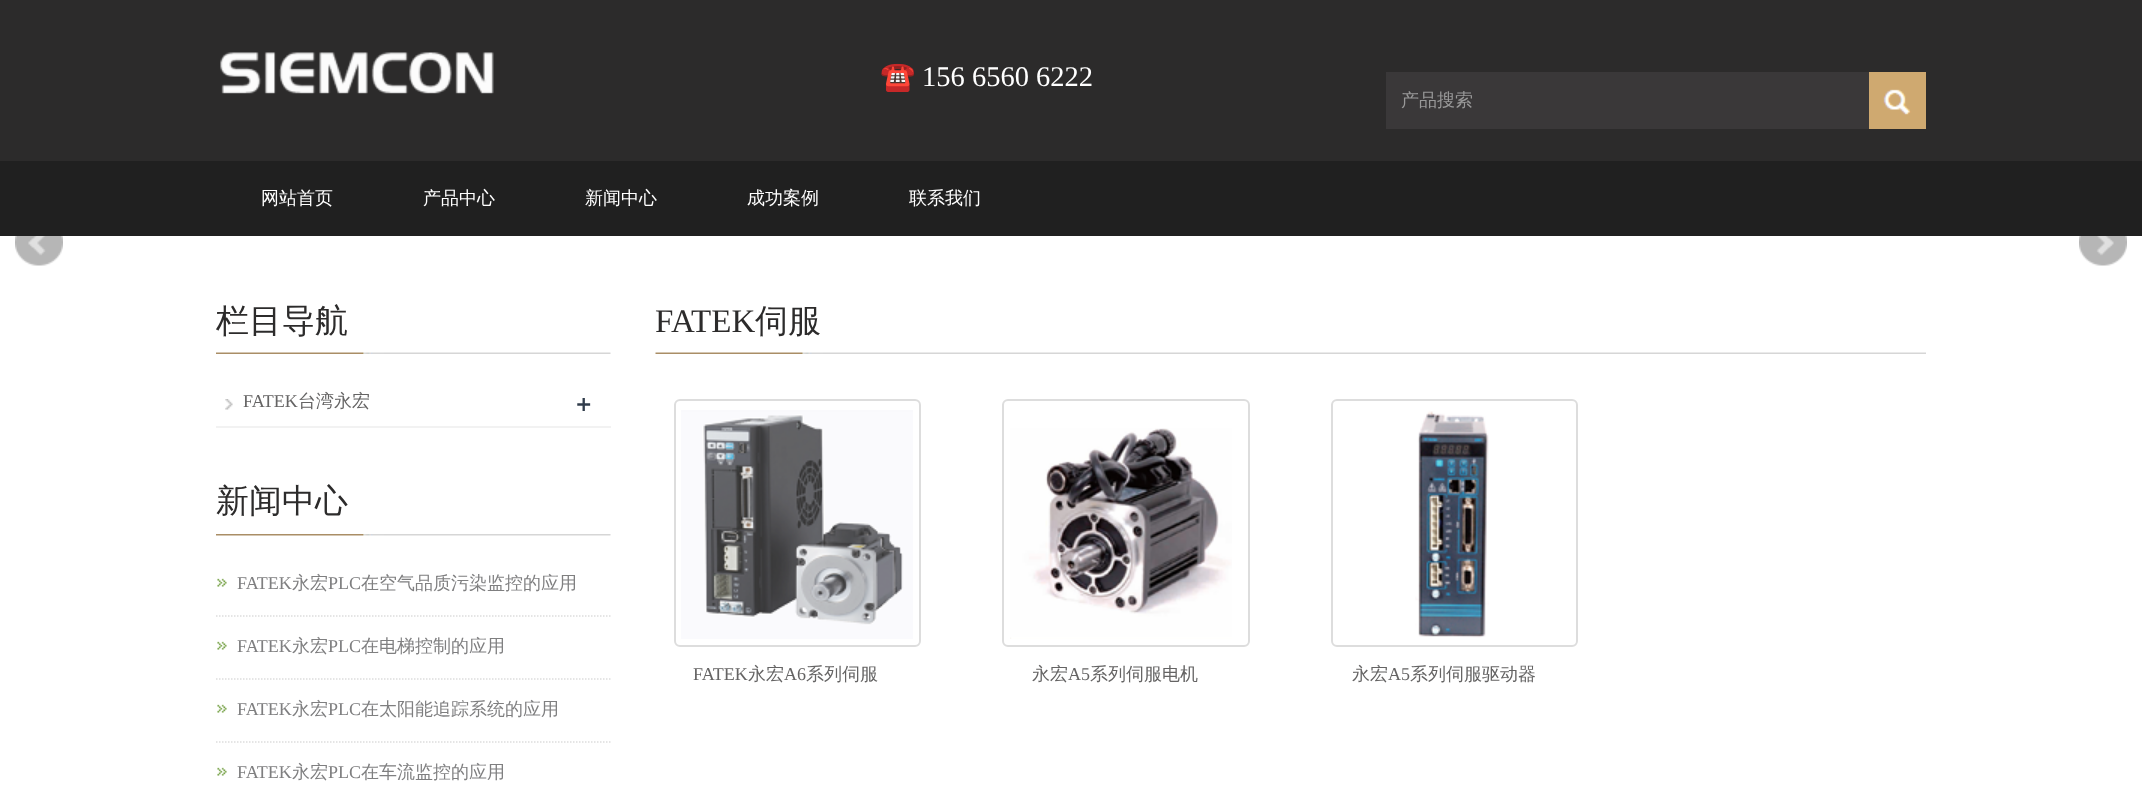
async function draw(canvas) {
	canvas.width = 2142;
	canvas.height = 794;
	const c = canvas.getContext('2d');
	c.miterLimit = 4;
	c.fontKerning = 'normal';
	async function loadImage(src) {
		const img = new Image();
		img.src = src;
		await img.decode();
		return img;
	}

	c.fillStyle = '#fff';
	c.fillRect(0, 0, 2142, 794);
	c.fillStyle = '#2c2b2b';
	c.fillRect(0, 0, 2142, 161);
	c.drawImage(await loadImage('img1.png'), 220, 52, 274, 42);
	c.font = '28.5px Noto Color Emoji';
	c.fillStyle = '#fff';
	c.fillText('☎️', 880, 86);
	c.font = '28.5px Liberation Serif';
	c.fillText('156 6560 6222', 922, 86);
	c.fillStyle = '#3a3839';
	c.fillRect(1386, 72, 483, 57);
	c.font = '500 18px WenQuanYi Zen Hei';
	c.fillStyle = '#999';
	c.fillText('产品搜索', 1401, 106);
	c.drawImage(await loadImage('img2.png'), 1869, 72, 57, 57);
	c.fillStyle = '#202020';
	c.fillRect(0, 161, 2142, 75);
	c.fillStyle = '#fff';
	for (const [text, x, y] of [
		['网站首页', 261, 204],
		['产品中心', 423, 204],
		['新闻中心', 585, 204],
		['成功案例', 747, 204],
		['联系我们', 909, 204],
	]) {
		c.fillText(text, x, y);
	}
	c.drawImage(await loadImage('img3.png'), 15, 236, 48, 30);
	c.drawImage(await loadImage('img4.png'), 2079, 236, 48, 30);
	c.drawImage(await loadImage('img5.png'), 216, 352, 395, 2);
	c.font = '500 33px WenQuanYi Zen Hei';
	c.fillStyle = '#2c2b2b';
	c.fillText('栏目导航', 216, 332);
	c.drawImage(await loadImage('img6.png'), 225, 399, 8, 11);
	c.fillStyle = '#f2f2f2';
	c.fillRect(216, 426, 395, 2);
	c.font = '18px Liberation Serif';
	c.fillStyle = '#656464';
	c.fillText('FATEK', 243, 407);
	c.font = '500 18px WenQuanYi Zen Hei';
	c.fillText('台湾永宏', 298, 407);
	c.font = '600 27px Open Sans';
	c.fillStyle = '#303c4b';
	c.fillText('+', 576, 414);
	c.drawImage(await loadImage('img7.png'), 216, 534, 395, 2);
	c.font = '500 33px WenQuanYi Zen Hei';
	c.fillStyle = '#2c2b2b';
	c.fillText('新闻中心', 216, 512);
	c.drawImage(await loadImage('img8.png'), 217, 578, 10, 9);
	c.beginPath();
	c.moveTo(216, 616);
	c.lineTo(610.5, 616);
	c.strokeStyle = '#ddd';
	c.lineWidth = 1.5;
	c.setLineDash([1.5, 1.5]);
	c.stroke();
	c.font = '18px Liberation Serif';
	c.fillStyle = '#7f7f80';
	c.fillText('FATEK', 237, 589);
	c.font = '500 18px WenQuanYi Zen Hei';
	c.fillText('永宏', 292, 589);
	c.font = '18px Liberation Serif';
	c.fillText('PLC', 328, 589);
	c.font = '500 18px WenQuanYi Zen Hei';
	c.fillText('在空气品质污染监控的应用', 361, 589);
	c.drawImage(await loadImage('img8.png'), 217, 641, 10, 9);
	c.beginPath();
	c.moveTo(216, 679);
	c.lineTo(610.5, 679);
	c.stroke();
	c.font = '18px Liberation Serif';
	c.fillText('FATEK', 237, 652);
	c.font = '500 18px WenQuanYi Zen Hei';
	c.fillText('永宏', 292, 652);
	c.font = '18px Liberation Serif';
	c.fillText('PLC', 328, 652);
	c.font = '500 18px WenQuanYi Zen Hei';
	c.fillText('在电梯控制的应用', 361, 652);
	c.drawImage(await loadImage('img8.png'), 217, 704, 10, 9);
	c.beginPath();
	c.moveTo(216, 742);
	c.lineTo(610.5, 742);
	c.stroke();
	c.font = '18px Liberation Serif';
	c.fillText('FATEK', 237, 715);
	c.font = '500 18px WenQuanYi Zen Hei';
	c.fillText('永宏', 292, 715);
	c.font = '18px Liberation Serif';
	c.fillText('PLC', 328, 715);
	c.font = '500 18px WenQuanYi Zen Hei';
	c.fillText('在太阳能追踪系统的应用', 361, 715);
	c.drawImage(await loadImage('img8.png'), 217, 767, 10, 9);
	c.font = '18px Liberation Serif';
	c.fillText('FATEK', 237, 778);
	c.font = '500 18px WenQuanYi Zen Hei';
	c.fillText('永宏', 292, 778);
	c.font = '18px Liberation Serif';
	c.fillText('PLC', 328, 778);
	c.font = '500 18px WenQuanYi Zen Hei';
	c.fillText('在车流监控的应用', 361, 778);
	c.drawImage(await loadImage('img9.png'), 655, 352, 1271, 2);
	c.font = '33px Liberation Serif';
	c.fillStyle = '#2c2b2b';
	c.fillText('FATEK', 655, 332);
	c.font = '500 33px WenQuanYi Zen Hei';
	c.fillText('伺服', 755, 332);
	c.beginPath();
	c.roundRect(675, 400, 245, 246, 5);
	c.lineWidth = 2;
	c.setLineDash([]);
	c.stroke();
	c.drawImage(await loadImage('img10.png'), 681, 410, 232, 229);
	c.font = '18px Liberation Serif';
	c.fillStyle = '#656464';
	c.fillText('FATEK', 693, 680);
	c.font = '500 18px WenQuanYi Zen Hei';
	c.fillText('永宏', 748, 680);
	c.font = '18px Liberation Serif';
	c.fillText('A6', 784, 680);
	c.font = '500 18px WenQuanYi Zen Hei';
	c.fillText('系列伺服', 806, 680);
	c.beginPath();
	c.roundRect(1003, 400, 246, 246, 5);
	c.stroke();
	c.drawImage(await loadImage('img11.png'), 1010, 428, 222, 211);
	c.fillText('永宏', 1032, 680);
	c.font = '18px Liberation Serif';
	c.fillText('A5', 1068, 680);
	c.font = '500 18px WenQuanYi Zen Hei';
	c.fillText('系列伺服电机', 1090, 680);
	c.beginPath();
	c.roundRect(1332, 400, 245, 246, 5);
	c.stroke();
	c.drawImage(await loadImage('img12.png'), 1415, 411, 74, 227);
	c.fillText('永宏', 1352, 680);
	c.font = '18px Liberation Serif';
	c.fillText('A5', 1388, 680);
	c.font = '500 18px WenQuanYi Zen Hei';
	c.fillText('系列伺服驱动器', 1410, 680);
}

draw(document.querySelector('canvas'));
